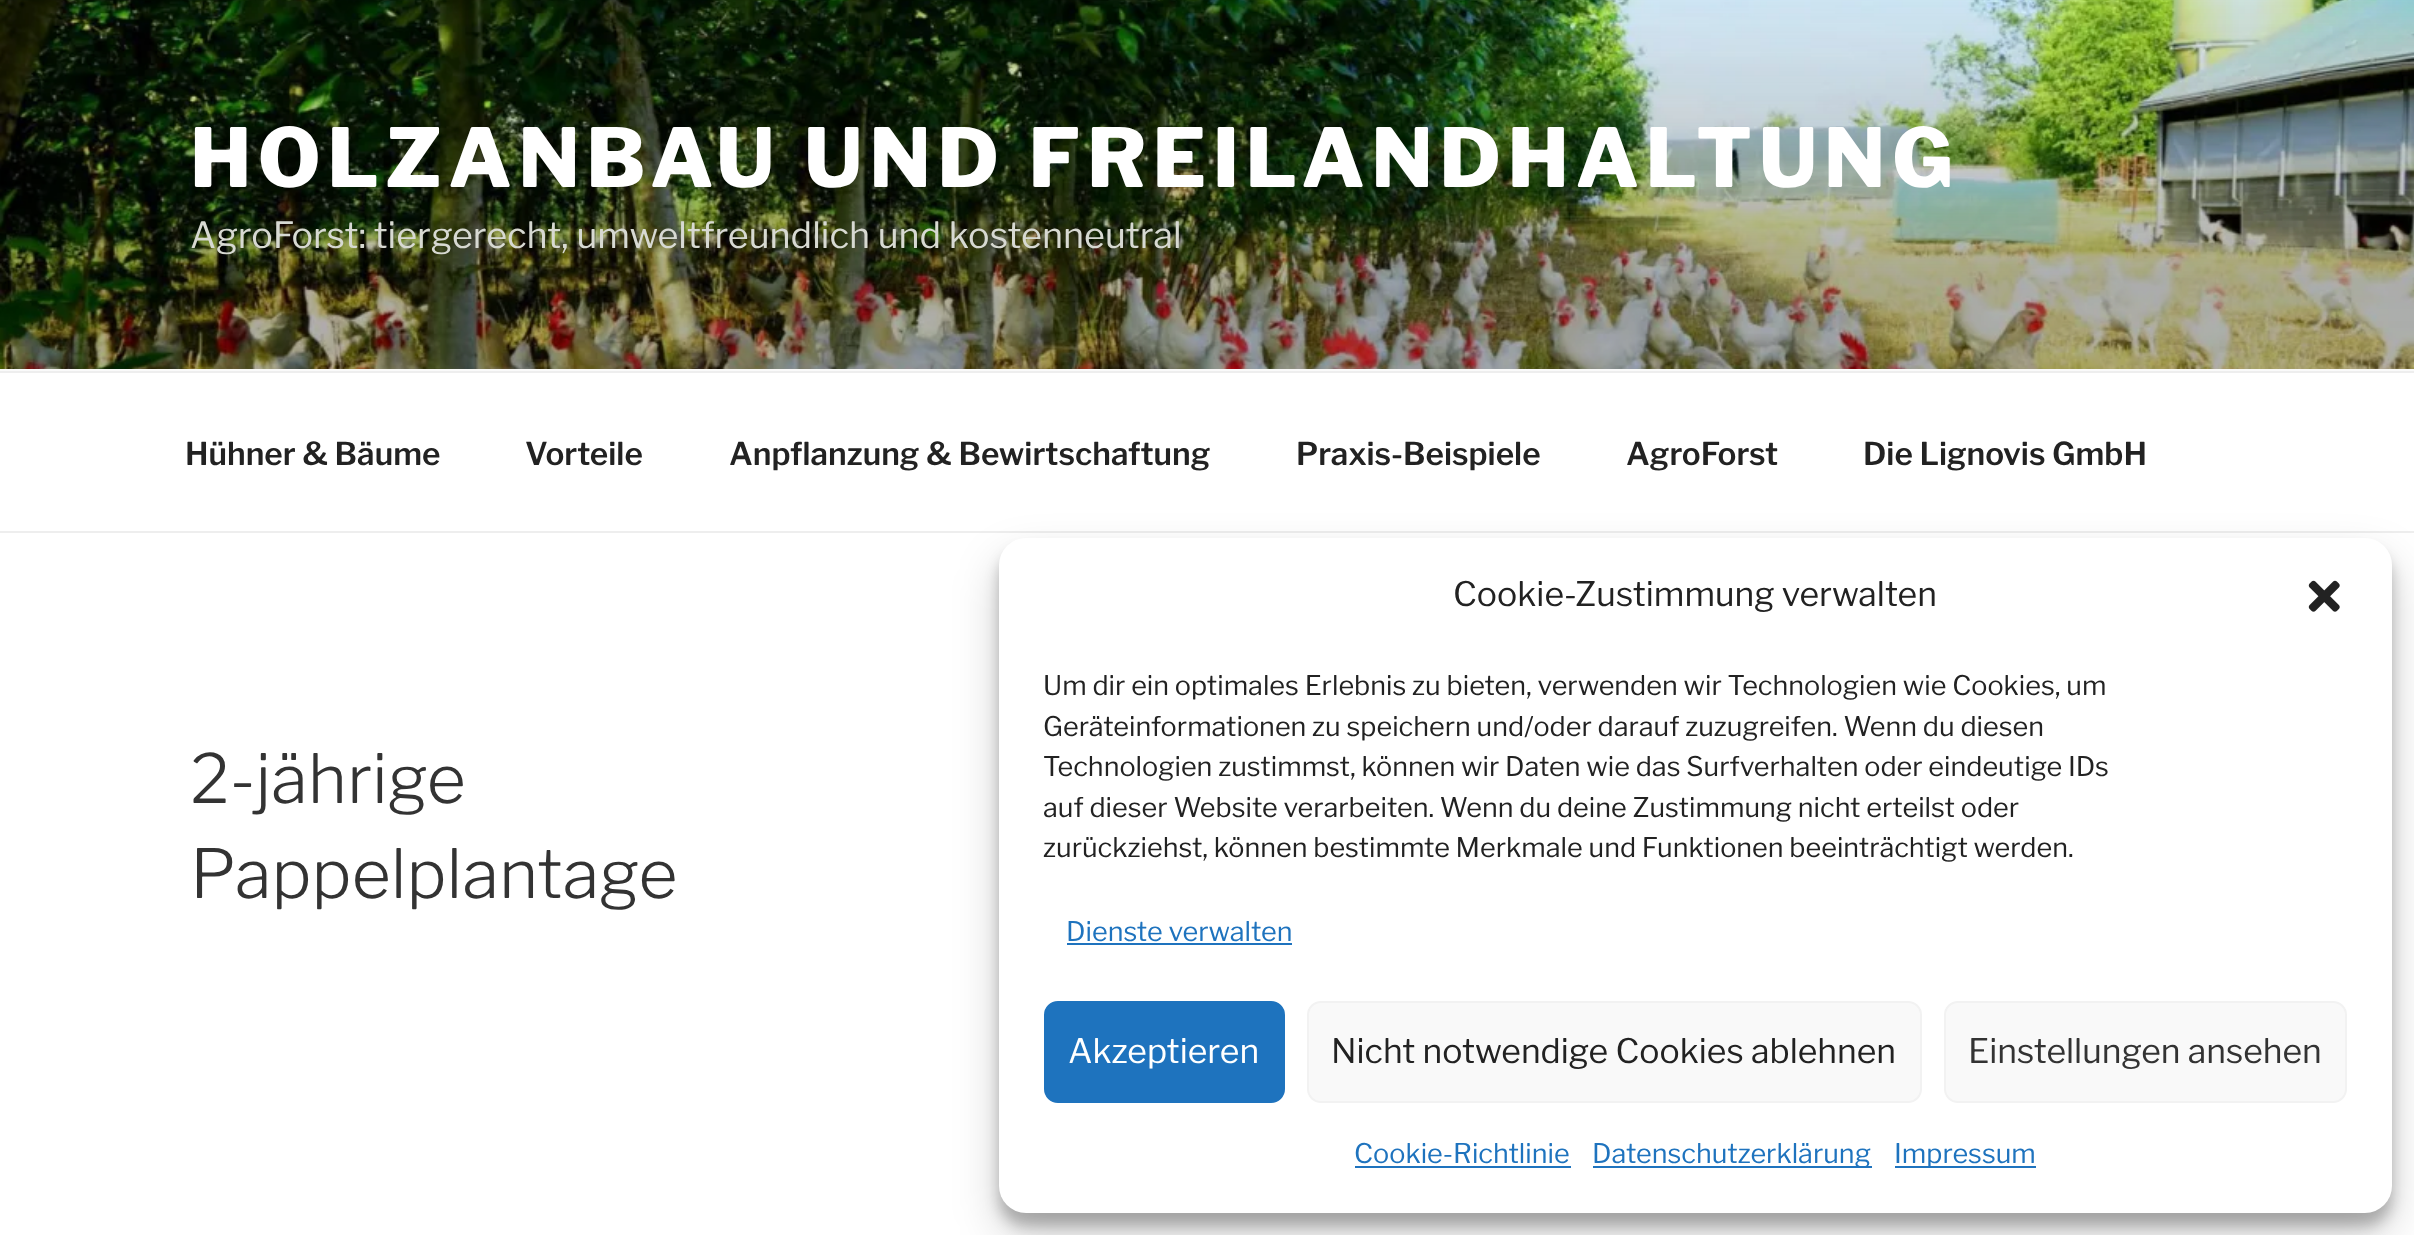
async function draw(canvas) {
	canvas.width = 2414;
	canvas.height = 1235;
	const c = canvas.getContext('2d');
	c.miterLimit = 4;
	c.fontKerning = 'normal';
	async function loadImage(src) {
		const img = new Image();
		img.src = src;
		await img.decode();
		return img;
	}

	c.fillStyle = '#fff';
	c.fillRect(0, 0, 2414, 1235);
	c.fillStyle = '#fafafa';
	c.fillRect(0, 369, 2414, 2);
	c.drawImage(await loadImage('img1.png'), 0, 0, 2414, 369);
	c.letterSpacing = '6.5px';
	c.font = '100 81px "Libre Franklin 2"';
	c.fillStyle = '#fff';
	c.fillText('HOLZANBAU UND FREILANDHALTUNG', 190, 187);
	c.letterSpacing = '0px';
	c.font = '100 36px "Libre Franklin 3"';
	c.fillStyle = '#d7d9d2';
	c.fillText('AgroForst: tiergerecht, umweltfreundlich und kostenneutral', 190, 248);
	c.fillStyle = '#eee';
	c.fillRect(0, 371, 2414, 2);
	c.fillRect(0, 531, 2414, 2);
	c.font = '100 31.5px "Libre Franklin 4"';
	c.fillStyle = '#222';
	for (const [text, x, y] of [
		['Hühner & Bäume', 185, 465],
		['Vorteile', 525, 465],
		['Anpflanzung & Bewirtschaftung', 729, 465],
		['Praxis-Beispiele', 1296, 465],
		['AgroForst', 1626, 465],
		['Die Lignovis GmbH', 1863, 465],
	]) {
		c.fillText(text, x, y);
	}
	c.font = '100 67.5px Libre Franklin';
	c.fillStyle = '#333';
	c.fillText('2-jährige', 190, 803);
	c.fillText('Pappelplantage', 190, 898);
	c.fillStyle = '#0000003b';
	c.filter = 'blur(7px)';
	c.beginPath();
	c.roundRect(999, 551, 1393, 675, 27);
	c.fill();
	c.filter = 'none';
	c.fillStyle = '#00000030';
	c.filter = 'blur(22.5px)';
	c.beginPath();
	c.roundRect(999, 560, 1393, 675, 27);
	c.fill();
	c.filter = 'none';
	c.fillStyle = '#fff';
	c.beginPath();
	c.roundRect(999, 538, 1393, 675, 27);
	c.fill();
	c.font = '100 33.75px "Libre Franklin 3"';
	c.fillStyle = '#222';
	c.fillText('Cookie-Zustimmung verwalten', 1453, 606);
	c.drawImage(await loadImage('img2.png'), 2308, 580, 32, 32);
	c.font = '100 27px "Libre Franklin 3"';
	for (const [text, x, y] of [
		['Um dir ein optimales Erlebnis zu bieten, verwenden wir Technologien wie Cookies, um', 1043, 695],
		['Geräteinformationen zu speichern und/oder darauf zuzugreifen. Wenn du diesen', 1043, 736],
		['Technologien zustimmst, können wir Daten wie das Surfverhalten oder eindeutige IDs', 1043, 776],
		['auf dieser Website verarbeiten. Wenn du deine Zustimmung nicht erteilst oder', 1043, 817],
		['zurückziehst, können bestimmte Merkmale und Funktionen beeinträchtigt werden.', 1043, 857],
	]) {
		c.fillText(text, x, y);
	}
	c.fillStyle = '#1e73be';
	c.fillText('Dienste verwalten', 1066, 941);
	c.fillRect(1067, 943, 225, 2);
	c.beginPath();
	c.roundRect(1045, 1002, 239, 100, 13);
	c.fill();
	c.strokeStyle = '#1e73be';
	c.lineWidth = 2;
	c.stroke();
	c.font = '100 33.75px "Libre Franklin 3"';
	c.fillStyle = '#fff';
	c.fillText('Akzeptieren', 1068, 1063);
	c.fillStyle = '#f9f9f9';
	c.beginPath();
	c.roundRect(1308, 1002, 613, 100, 13);
	c.fill();
	c.strokeStyle = '#f2f2f2';
	c.stroke();
	c.fillStyle = '#222';
	c.fillText('Nicht notwendige Cookies ablehnen', 1331, 1063);
	c.fillStyle = '#f9f9f9';
	c.beginPath();
	c.roundRect(1945, 1002, 401, 100, 13);
	c.fill();
	c.stroke();
	c.fillStyle = '#333';
	c.fillText('Einstellungen ansehen', 1968, 1063);
	c.font = '100 27px "Libre Franklin 3"';
	c.fillStyle = '#1e73be';
	c.fillText('Cookie-Richtlinie', 1354, 1163);
	c.fillRect(1355, 1166, 216, 2);
	c.fillRect(1593, 1166, 279, 2);
	c.fillText('Datenschutzerklärung', 1592, 1163);
	c.fillRect(1895, 1166, 141, 2);
	c.fillText('Impressum', 1894, 1163);
}

draw(document.querySelector('canvas'));
